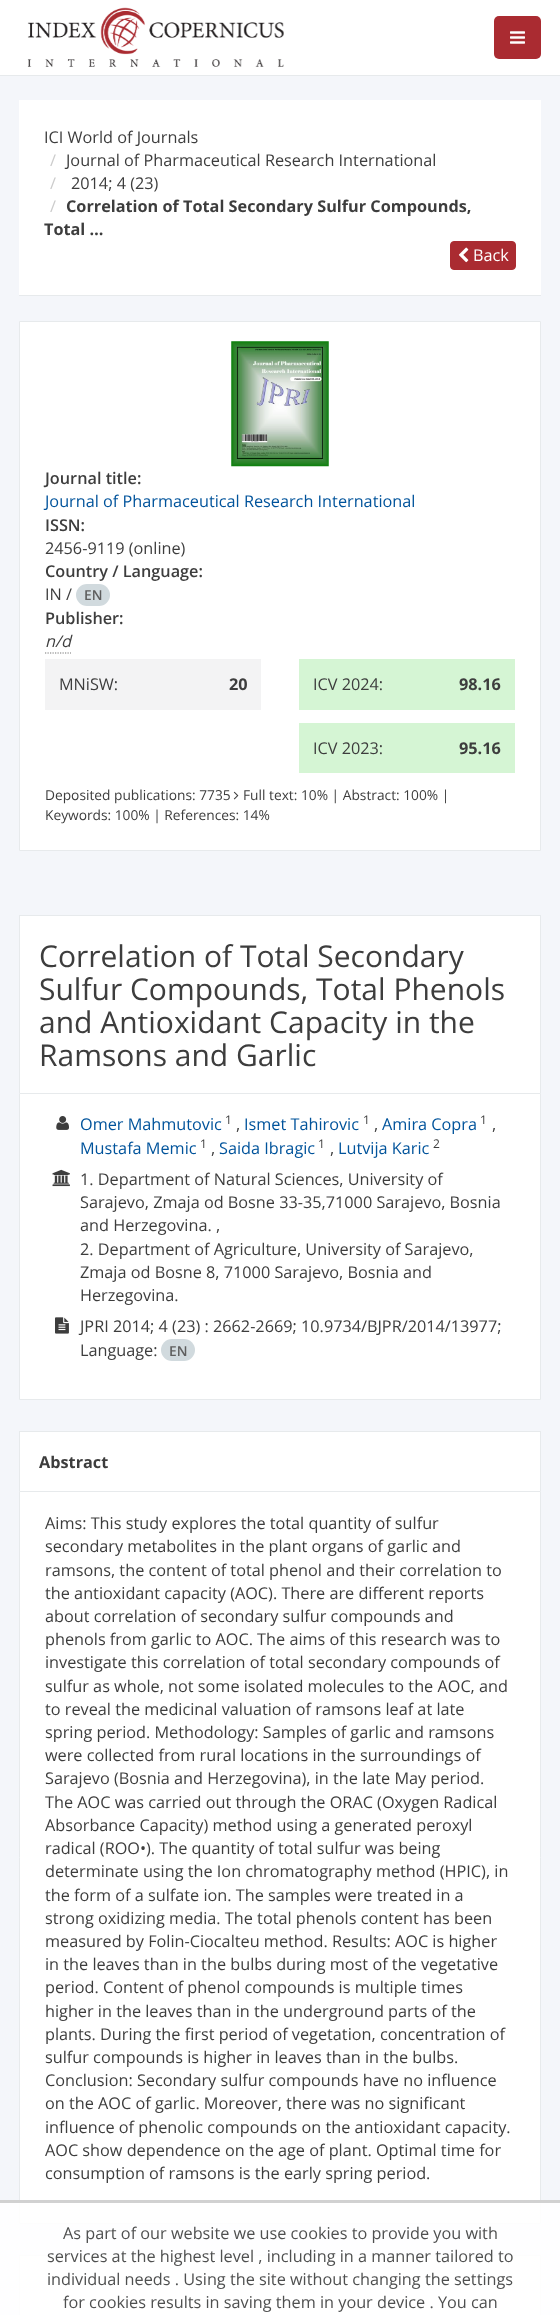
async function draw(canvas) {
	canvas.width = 560;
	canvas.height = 2315;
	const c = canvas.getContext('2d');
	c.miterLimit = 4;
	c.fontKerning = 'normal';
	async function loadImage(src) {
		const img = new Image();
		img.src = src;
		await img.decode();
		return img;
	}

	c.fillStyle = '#f4f6fa';
	c.fillRect(0, 0, 560, 2315);
	c.fillStyle = '#fff';
	c.fillRect(0, 0, 560, 75);
	c.fillStyle = '#e7eaec';
	c.fillRect(0, 75, 560, 1);
	c.drawImage(await loadImage('img1.png'), 27, 7, 257, 60);
	c.fillStyle = '#aa2b31';
	c.beginPath();
	c.roundRect(494, 16, 47, 43, 5);
	c.fill();
	c.drawImage(await loadImage('img2.png'), 510, 31, 15, 13);
	c.fillStyle = '#fff';
	c.fillRect(19, 100, 522, 195);
	c.fillStyle = '#e7eaec';
	c.fillRect(19, 295, 522, 1);
	c.font = '16.25px Open Sans';
	c.fillStyle = '#3d3d3d';
	c.fillText('ICI World of Journals', 44, 143);
	c.fillStyle = '#ccc';
	c.fillText('/', 50, 166);
	c.fillStyle = '#3d3d3d';
	c.fillText('Journal of Pharmaceutical Research International', 66, 166);
	c.fillStyle = '#ccc';
	c.fillText('/', 50, 189);
	c.fillStyle = '#3d3d3d';
	c.fillText('2014; 4 (23)', 71, 189);
	c.fillStyle = '#ccc';
	c.fillText('/', 50, 212);
	c.font = 'bold 16.25px Open Sans';
	c.fillStyle = '#3d3d3d';
	c.fillText('Correlation of Total Secondary Sulfur Compounds,', 66, 212);
	c.fillText('Total …', 44, 235);
	c.fillStyle = '#aa2b31';
	c.beginPath();
	c.roundRect(450.5, 241.5, 65, 28, 3.5);
	c.fill();
	c.strokeStyle = '#aa2b31';
	c.stroke();
	c.drawImage(await loadImage('img3.png'), 458, 247, 11, 16);
	c.font = '16.25px Open Sans';
	c.fillStyle = '#fff';
	c.fillText('Back', 473, 261);
	c.beginPath();
	c.rect(19.5, 321.5, 521, 529);
	c.fill();
	c.strokeStyle = '#e7eaec';
	c.stroke();
	c.drawImage(await loadImage('img4.png'), 231, 341, 98, 126);
	c.font = '600 16.25px Open Sans';
	c.fillStyle = '#3d3d3d';
	c.fillText('Journal title:', 45, 484);
	c.font = '16.25px Open Sans';
	c.fillStyle = '#00539b';
	c.fillText('Journal of Pharmaceutical Research International', 45, 507);
	c.font = '600 16.25px Open Sans';
	c.fillStyle = '#3d3d3d';
	c.fillText('ISSN:', 45, 531);
	c.font = '16.25px Open Sans';
	c.fillText('2456-9119 (online)', 45, 554);
	c.font = '600 16.25px Open Sans';
	c.fillText('Country / Language:', 45, 577);
	c.font = '16.25px Open Sans';
	c.fillText('IN /', 45, 600);
	c.fillStyle = '#d1dade';
	c.beginPath();
	c.roundRect(76, 584, 34, 22, 11);
	c.fill();
	c.font = '600 13.75px Open Sans';
	c.fillStyle = '#5e5e5e';
	c.fillText('EN', 84, 600);
	c.font = '600 16.25px Open Sans';
	c.fillStyle = '#3d3d3d';
	c.fillText('Publisher:', 45, 624);
	c.font = 'italic 16.25px Open Sans';
	c.fillText('n/d', 45, 647);
	c.beginPath();
	c.moveTo(45, 653);
	c.lineTo(71, 653);
	c.strokeStyle = '#777';
	c.lineWidth = 1.2;
	c.setLineDash([1.25, 1.25]);
	c.stroke();
	c.fillStyle = '#f3f3f4';
	c.fillRect(45, 659, 216, 51);
	c.font = '16.25px Open Sans';
	c.fillStyle = '#3d3d3d';
	c.fillText('MNiSW:', 59, 690);
	c.font = 'bold 16.25px Open Sans';
	c.fillText('20', 229, 690);
	c.fillStyle = '#d5f5d4';
	c.fillRect(299, 659, 216, 51);
	c.font = '16.25px Open Sans';
	c.fillStyle = '#3d3d3d';
	c.fillText('ICV 2024:', 313, 690);
	c.font = 'bold 16.25px Open Sans';
	c.fillText('98.16', 459, 690);
	c.fillStyle = '#d5f5d4';
	c.fillRect(299, 723, 216, 50);
	c.font = '16.25px Open Sans';
	c.fillStyle = '#3d3d3d';
	c.fillText('ICV 2023:', 313, 754);
	c.font = 'bold 16.25px Open Sans';
	c.fillText('95.16', 459, 754);
	c.font = '13.75px Open Sans';
	c.fillText('Deposited publications: 7735', 45, 800);
	c.drawImage(await loadImage('img5.png'), 233, 791, 6, 9);
	c.fillText('Full text: 10% | Abstract: 100% |', 243, 800);
	c.fillText('Keywords: 100% | References: 14%', 45, 820);
	for (const [x, y, w, h, color] of [
		[20, 916, 520, 177, '#fff'],
		[19, 915, 522, 1, '#e7eaec'],
		[540, 915, 1, 178, '#e7eaec'],
		[19, 915, 1, 178, '#e7eaec'],
	]) {
		c.fillStyle = color;
		c.fillRect(x, y, w, h);
	}
	c.font = '30px Open Sans';
	c.fillStyle = '#3d3d3d';
	for (const [text, x, y] of [
		['Correlation of Total Secondary', 39, 967],
		['Sulfur Compounds, Total Phenols', 39, 1000],
		['and Antioxidant Capacity in the', 39, 1033],
		['Ramsons and Garlic', 39, 1066],
	]) {
		c.fillText(text, x, y);
	}
	c.fillStyle = '#fff';
	c.beginPath();
	c.rect(19.5, 1093.5, 521, 306);
	c.fill();
	c.strokeStyle = '#e7eaec';
	c.lineWidth = 1;
	c.setLineDash([]);
	c.stroke();
	c.drawImage(await loadImage('img6.png'), 56, 1116, 13, 14);
	c.font = '16.25px Open Sans';
	c.fillStyle = '#00539b';
	c.fillText('Omer Mahmutovic', 80, 1130);
	c.font = '12px Open Sans';
	c.fillStyle = '#3d3d3d';
	c.fillText('1', 225, 1124);
	c.font = '16.25px Open Sans';
	c.fillText(',', 236, 1130);
	c.fillStyle = '#00539b';
	c.fillText('Ismet Tahirovic', 244, 1130);
	c.font = '12px Open Sans';
	c.fillStyle = '#3d3d3d';
	c.fillText('1', 363, 1124);
	c.font = '16.25px Open Sans';
	c.fillText(',', 374, 1130);
	c.fillStyle = '#00539b';
	c.fillText('Amira Copra', 382, 1130);
	c.font = '12px Open Sans';
	c.fillStyle = '#3d3d3d';
	c.fillText('1', 480, 1124);
	c.font = '16.25px Open Sans';
	c.fillText(',', 492, 1130);
	c.fillStyle = '#00539b';
	c.fillText('Mustafa Memic', 80, 1154);
	c.font = '12px Open Sans';
	c.fillStyle = '#3d3d3d';
	c.fillText('1', 200, 1148);
	c.font = '16.25px Open Sans';
	c.fillText(',', 211, 1154);
	c.fillStyle = '#00539b';
	c.fillText('Saida Ibragic', 219, 1154);
	c.font = '12px Open Sans';
	c.fillStyle = '#3d3d3d';
	c.fillText('1', 318, 1148);
	c.font = '16.25px Open Sans';
	c.fillText(',', 330, 1154);
	c.fillStyle = '#00539b';
	c.fillText('Lutvija Karic', 338, 1154);
	c.font = '12px Open Sans';
	c.fillStyle = '#3d3d3d';
	c.fillText('2', 433, 1148);
	c.drawImage(await loadImage('img7.png'), 52, 1169, 18, 18);
	c.font = '16.25px Open Sans';
	for (const [text, x, y] of [
		['1. Department of Natural Sciences, University of', 80, 1185],
		['Sarajevo, Zmaja od Bosne 33-35,71000 Sarajevo, Bosnia', 80, 1208],
		['and Herzegovina. ,', 80, 1231],
		['2. Department of Agriculture, University of Sarajevo,', 80, 1255],
		['Zmaja od Bosne 8, 71000 Sarajevo, Bosnia and', 80, 1278],
		['Herzegovina.', 80, 1301],
	]) {
		c.fillText(text, x, y);
	}
	c.drawImage(await loadImage('img8.png'), 55, 1317, 14, 17);
	c.fillText('JPRI 2014; 4 (23) : 2662-2669; 10.9734/BJPR/2014/13977;', 80, 1332);
	c.fillText('Language:', 80, 1356);
	c.fillStyle = '#d1dade';
	c.beginPath();
	c.roundRect(161, 1339, 34, 22, 11);
	c.fill();
	c.font = '600 13.75px Open Sans';
	c.fillStyle = '#5e5e5e';
	c.fillText('EN', 169, 1356);
	for (const [x, y, w, h, color] of [
		[20, 1432, 520, 59, '#fff'],
		[19, 1431, 522, 1, '#e7eaec'],
		[540, 1431, 1, 60, '#e7eaec'],
		[19, 1431, 1, 60, '#e7eaec'],
	]) {
		c.fillStyle = color;
		c.fillRect(x, y, w, h);
	}
	c.font = 'bold 16.25px Open Sans';
	c.fillStyle = '#3d3d3d';
	c.fillText('Abstract', 39, 1468);
	c.fillStyle = '#fff';
	c.beginPath();
	c.rect(19.5, 1491.5, 521, 732);
	c.fill();
	c.stroke();
	c.font = '16.25px Open Sans';
	c.fillStyle = '#3d3d3d';
	for (const [text, x, y] of [
		['Aims: This study explores the total quantity of sulfur', 45, 1529],
		['secondary metabolites in the plant organs of garlic and', 45, 1552],
		['ramsons, the content of total phenol and their correlation to', 45, 1576],
		['the antioxidant capacity (AOC). There are different reports', 45, 1599],
		['about correlation of secondary sulfur compounds and', 45, 1622],
		['phenols from garlic to AOC. The aims of this research was to', 45, 1645],
		['investigate this correlation of total secondary compounds of', 45, 1668],
		['sulfur as whole, not some isolated molecules to the AOC, and', 45, 1692],
		['to reveal the medicinal valuation of ramsons leaf at late', 45, 1715],
		['spring period. Methodology: Samples of garlic and ramsons', 45, 1738],
		['were collected from rural locations in the surroundings of', 45, 1761],
		['Sarajevo (Bosnia and Herzegovina), in the late May period.', 45, 1784],
		['The AOC was carried out through the ORAC (Oxygen Radical', 45, 1808],
		['Absorbance Capacity) method using a generated peroxyl', 45, 1831],
		['radical (ROO•). The quantity of total sulfur was being', 45, 1854],
		['determinate using the Ion chromatography method (HPIC), in', 45, 1877],
		['the form of a sulfate ion. The samples were treated in a', 45, 1901],
		['strong oxidizing media. The total phenols content has been', 45, 1924],
		['measured by Folin-Ciocalteu method. Results: AOC is higher', 45, 1947],
		['in the leaves than in the bulbs during most of the vegetative', 45, 1970],
		['period. Content of phenol compounds is multiple times', 45, 1993],
		['higher in the leaves than in the underground parts of the', 45, 2017],
		['plants. During the first period of vegetation, concentration of', 45, 2040],
		['sulfur compounds is higher in leaves than in the bulbs.', 45, 2063],
		['Conclusion: Secondary sulfur compounds have no influence', 45, 2086],
		['on the AOC of garlic. Moreover, there was no significant', 45, 2109],
		['influence of phenolic compounds on the antioxidant capacity.', 45, 2133],
		['AOC show dependence on the age of plant. Optimal time for', 45, 2156],
		['consumption of ramsons is the early spring period.', 45, 2179],
	]) {
		c.fillText(text, x, y);
	}
	for (const [x, y, w, h, color] of [
		[20, 2256, 520, 59, '#fff'],
		[19, 2255, 522, 1, '#e7eaec'],
		[540, 2255, 1, 60, '#e7eaec'],
		[19, 2255, 1, 60, '#e7eaec'],
		[0, 2203, 560, 112, '#ffffffe6'],
		[0, 2200, 560, 3, '#d1d1d1'],
	]) {
		c.fillStyle = color;
		c.fillRect(x, y, w, h);
	}
	c.fillStyle = '#4f5050';
	for (const [text, x, y] of [
		['As part of our website we use cookies to provide you with', 63, 2239],
		['services at the highest level , including in a manner tailored to', 47, 2262],
		['individual needs . Using the site without changing the settings', 47, 2285],
		['for cookies results in saving them in your device . You can', 63, 2308],
	]) {
		c.fillText(text, x, y);
	}
}

draw(document.querySelector('canvas'));
